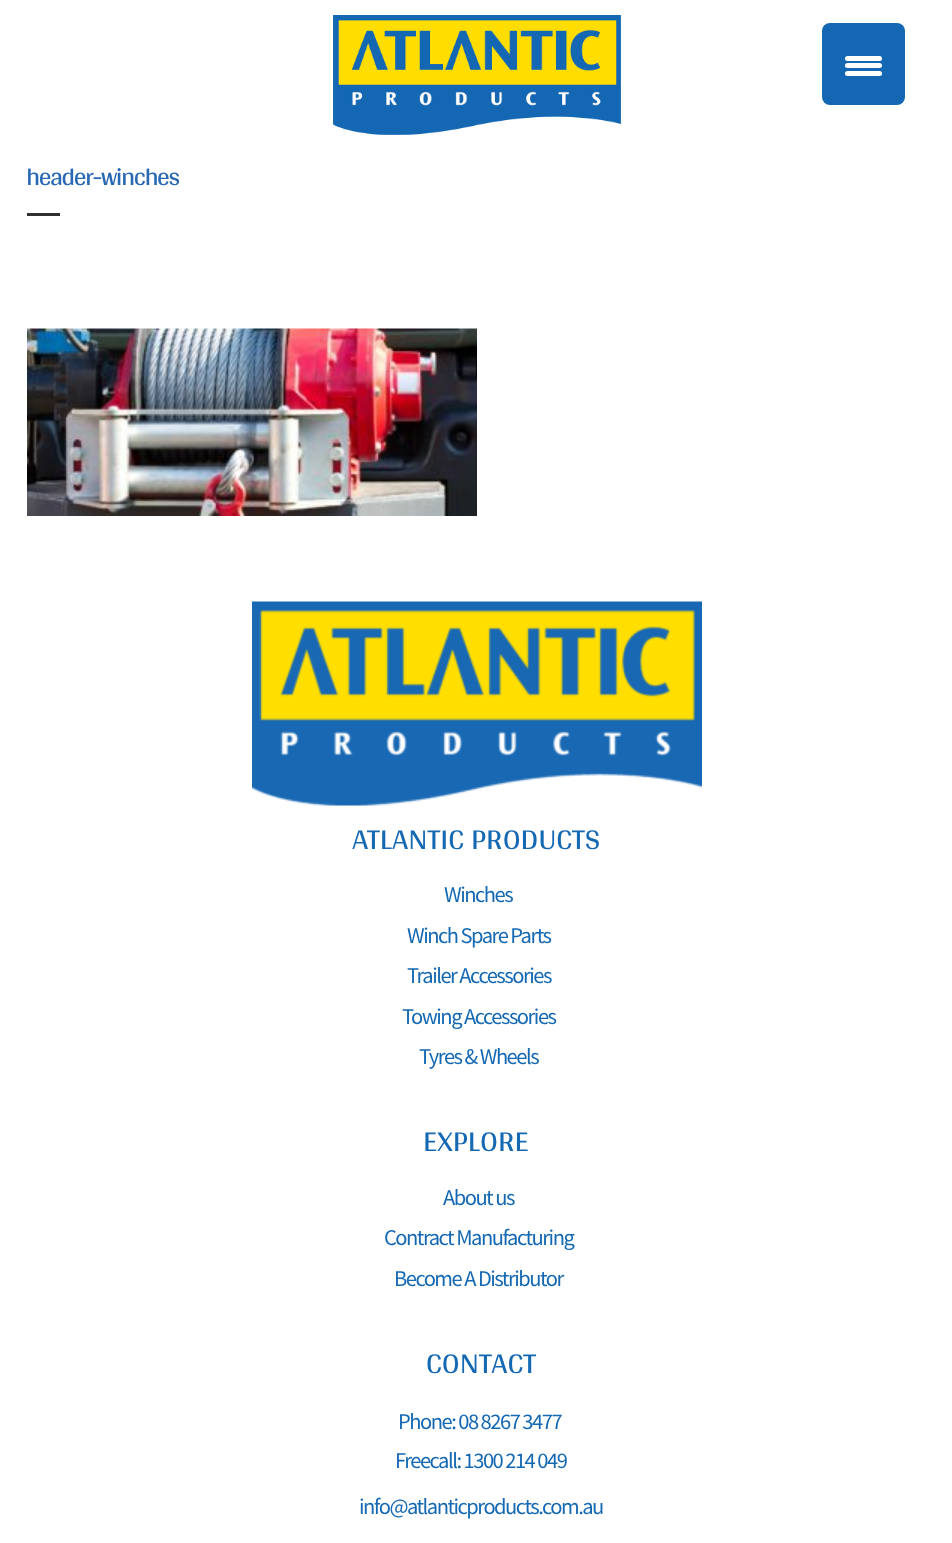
async function draw(canvas) {
	canvas.width = 952;
	canvas.height = 1543;
	const c = canvas.getContext('2d');
	c.miterLimit = 4;
	c.fontKerning = 'normal';
	async function loadImage(src) {
		const img = new Image();
		img.src = src;
		await img.decode();
		return img;
	}

	c.fillStyle = '#fff';
	c.fillRect(0, 0, 952, 1543);
	c.fillStyle = '#1468b3';
	c.beginPath();
	c.roundRect(822, 23, 83, 82, 8);
	c.fill();
	c.fillStyle = '#fff';
	c.beginPath();
	c.roundRect(845, 63, 37, 5, 2.5);
	c.fill();
	c.beginPath();
	c.roundRect(845, 56, 37, 5, 2.5);
	c.fill();
	c.beginPath();
	c.roundRect(845, 71, 37, 5, 2.5);
	c.fill();
	c.drawImage(await loadImage('img1.png'), 333, 15, 288, 120);
	c.letterSpacing = '-1.5px';
	c.font = '25.5px Arya';
	c.fillStyle = '#2969b3';
	c.fillText('header-winches', 26, 185);
	c.fillStyle = '#303030';
	c.fillRect(27, 213, 33, 3);
	c.drawImage(await loadImage('img2.png'), 27, 328, 450, 188);
	c.drawImage(await loadImage('img3.png'), 252, 601, 450, 205);
	c.letterSpacing = '0px';
	c.font = '30px Arya';
	c.fillStyle = '#1569b3';
	c.fillText('ATLANTIC PRODUCTS', 352, 849);
	c.letterSpacing = '-1.5px';
	c.font = '22.5px Source Sans Pro';
	for (const [text, x, y] of [
		['Winches', 444, 902],
		['Winch Spare Parts', 407, 943],
		['Trailer Accessories', 407, 983],
		['Towing Accessories', 402, 1024],
		['Tyres & Wheels', 419, 1064],
	]) {
		c.fillText(text, x, y);
	}
	c.letterSpacing = '0px';
	c.font = '30px Arya';
	c.fillText('EXPLORE', 423, 1151);
	c.letterSpacing = '-1.5px';
	c.font = '22.5px Source Sans Pro';
	for (const [text, x, y] of [
		['About us', 443, 1205],
		['Contract Manufacturing', 384, 1245],
		['Become A Distributor', 394, 1286],
	]) {
		c.fillText(text, x, y);
	}
	c.letterSpacing = '0px';
	c.font = '30px Arya';
	c.fillText('CONTACT', 426, 1373);
	c.letterSpacing = '-1.5px';
	c.font = '22.5px Source Sans Pro';
	for (const [text, x, y] of [
		['Phone: 08 8267 3477', 398, 1429],
		['Freecall: 1300 214 049', 395, 1468],
		['info@atlanticproducts.com.au', 359, 1514],
	]) {
		c.fillText(text, x, y);
	}
}

draw(document.querySelector('canvas'));
